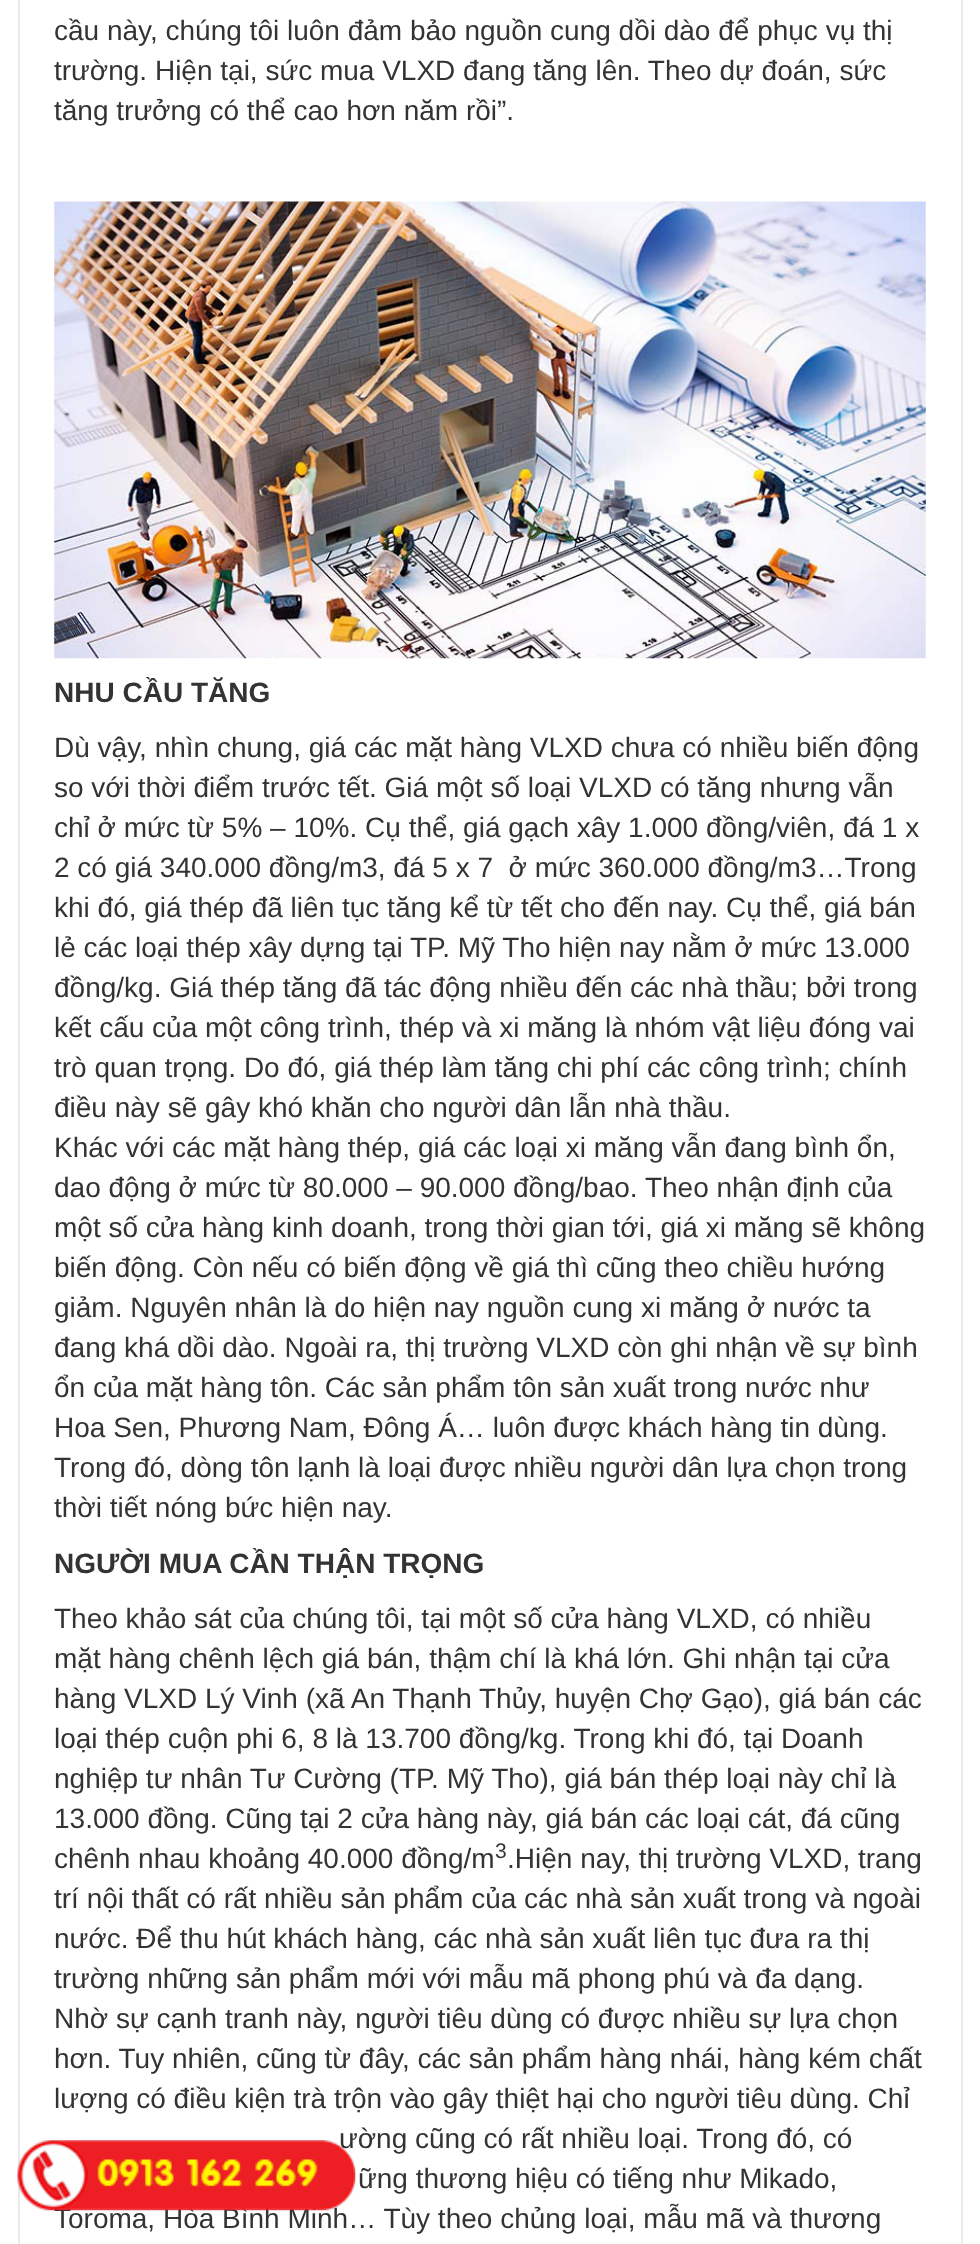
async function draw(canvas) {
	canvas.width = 980;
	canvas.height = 2244;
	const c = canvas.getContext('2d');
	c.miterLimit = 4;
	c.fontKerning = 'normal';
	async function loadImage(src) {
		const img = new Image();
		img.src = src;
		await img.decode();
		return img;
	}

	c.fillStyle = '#fff';
	c.fillRect(0, 0, 980, 2244);
	c.strokeStyle = '#ebebeb';
	c.lineWidth = 2;
	c.strokeRect(19, -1, 943, 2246);
	c.font = '28px Liberation Sans';
	c.fillStyle = '#333';
	for (const [text, x, y] of [
		['cầu này, chúng tôi luôn đảm bảo nguồn cung dồi dào để phục vụ thị', 54, 40],
		['trường. Hiện tại, sức mua VLXD đang tăng lên. Theo dự đoán, sức', 54, 80],
		['tăng trưởng có thể cao hơn năm rồi”.', 54, 120],
	]) {
		c.fillText(text, x, y);
	}
	c.drawImage(await loadImage('img1.png'), 54, 201, 872, 458);
	c.font = 'bold 28px Liberation Sans';
	c.fillText('NHU CẦU TĂNG', 54, 702);
	c.font = '28px Liberation Sans';
	for (const [text, x, y] of [
		['Dù vậy, nhìn chung, giá các mặt hàng VLXD chưa có nhiều biến động', 54, 757],
		['so với thời điểm trước tết. Giá một số loại VLXD có tăng nhưng vẫn', 54, 797],
		['chỉ ở mức từ 5% – 10%. Cụ thể, giá gạch xây 1.000 đồng/viên, đá 1 x', 54, 837],
		['2 có giá 340.000 đồng/m3, đá 5 x 7  ở mức 360.000 đồng/m3…Trong', 54, 877],
		['khi đó, giá thép đã liên tục tăng kể từ tết cho đến nay. Cụ thể, giá bán', 54, 917],
		['lẻ các loại thép xây dựng tại TP. Mỹ Tho hiện nay nằm ở mức 13.000', 54, 957],
		['đồng/kg. Giá thép tăng đã tác động nhiều đến các nhà thầu; bởi trong', 54, 997],
		['kết cấu của một công trình, thép và xi măng là nhóm vật liệu đóng vai', 54, 1037],
		['trò quan trọng. Do đó, giá thép làm tăng chi phí các công trình; chính', 54, 1077],
		['điều này sẽ gây khó khăn cho người dân lẫn nhà thầu.', 54, 1117],
		['Khác với các mặt hàng thép, giá các loại xi măng vẫn đang bình ổn,', 54, 1157],
		['dao động ở mức từ 80.000 – 90.000 đồng/bao. Theo nhận định của', 54, 1197],
		['một số cửa hàng kinh doanh, trong thời gian tới, giá xi măng sẽ không', 54, 1237],
		['biến động. Còn nếu có biến động về giá thì cũng theo chiều hướng', 54, 1277],
		['giảm. Nguyên nhân là do hiện nay nguồn cung xi măng ở nước ta', 54, 1317],
		['đang khá dồi dào. Ngoài ra, thị trường VLXD còn ghi nhận về sự bình', 54, 1357],
		['ổn của mặt hàng tôn. Các sản phẩm tôn sản xuất trong nước như', 54, 1397],
		['Hoa Sen, Phương Nam, Đông Á… luôn được khách hàng tin dùng.', 54, 1437],
		['Trong đó, dòng tôn lạnh là loại được nhiều người dân lựa chọn trong', 54, 1477],
		['thời tiết nóng bức hiện nay.', 54, 1517],
	]) {
		c.fillText(text, x, y);
	}
	c.font = 'bold 28px Liberation Sans';
	c.fillText('NGƯỜI MUA CẦN THẬN TRỌNG', 54, 1573);
	c.font = '28px Liberation Sans';
	for (const [text, x, y] of [
		['Theo khảo sát của chúng tôi, tại một số cửa hàng VLXD, có nhiều', 54, 1628],
		['mặt hàng chênh lệch giá bán, thậm chí là khá lớn. Ghi nhận tại cửa', 54, 1668],
		['hàng VLXD Lý Vinh (xã An Thạnh Thủy, huyện Chợ Gạo), giá bán các', 54, 1708],
		['loại thép cuộn phi 6, 8 là 13.700 đồng/kg. Trong khi đó, tại Doanh', 54, 1748],
		['nghiệp tư nhân Tư Cường (TP. Mỹ Tho), giá bán thép loại này chỉ là', 54, 1788],
		['13.000 đồng. Cũng tại 2 cửa hàng này, giá bán các loại cát, đá cũng', 54, 1828],
		['chênh nhau khoảng 40.000 đồng/m', 54, 1868],
	]) {
		c.fillText(text, x, y);
	}
	c.font = '21px Liberation Sans';
	c.fillText('3', 495, 1858);
	c.font = '28px Liberation Sans';
	for (const [text, x, y] of [
		['.Hiện nay, thị trường VLXD, trang', 507, 1868],
		['trí nội thất có rất nhiều sản phẩm của các nhà sản xuất trong và ngoài', 54, 1908],
		['nước. Để thu hút khách hàng, các nhà sản xuất liên tục đưa ra thị', 54, 1948],
		['trường những sản phẩm mới với mẫu mã phong phú và đa dạng.', 54, 1988],
		['Nhờ sự cạnh tranh này, người tiêu dùng có được nhiều sự lựa chọn', 54, 2028],
		['hơn. Tuy nhiên, cũng từ đây, các sản phẩm hàng nhái, hàng kém chất', 54, 2068],
		['lượng có điều kiện trà trộn vào gây thiệt hại cho người tiêu dùng. Chỉ', 54, 2108],
		['ường cũng có rất nhiều loại. Trong đó, có', 339, 2148],
		['ững thương hiệu có tiếng như Mikado,', 358, 2188],
		['Toroma, Hòa Bình Minh… Tùy theo chủng loại, mẫu mã và thương', 54, 2228],
	]) {
		c.fillText(text, x, y);
	}
	c.drawImage(await loadImage('img2.png'), 17, 2140, 339, 71);
}

draw(document.querySelector('canvas'));
